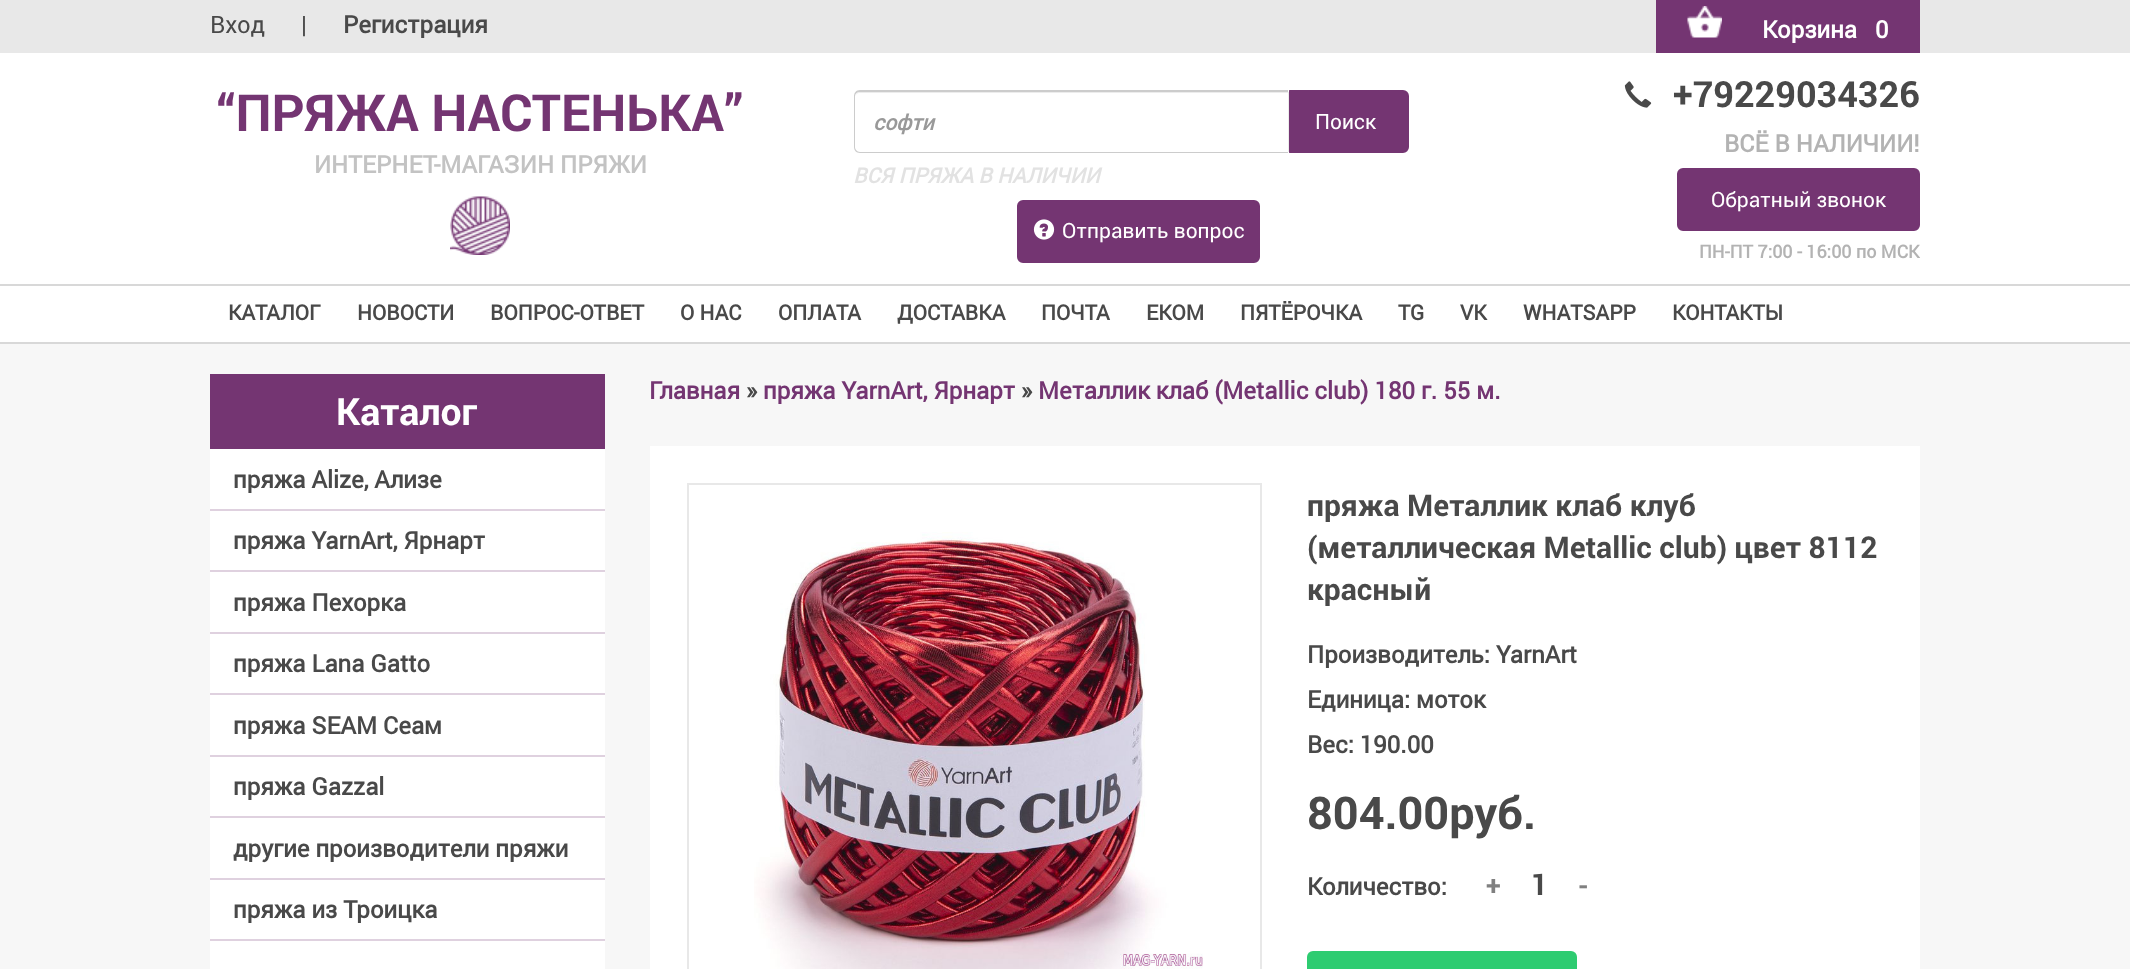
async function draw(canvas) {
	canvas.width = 2130;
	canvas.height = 969;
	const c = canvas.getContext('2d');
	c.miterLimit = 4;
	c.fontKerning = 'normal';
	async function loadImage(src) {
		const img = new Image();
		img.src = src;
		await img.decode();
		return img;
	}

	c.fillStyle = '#fff';
	c.fillRect(0, 0, 2130, 969);
	c.fillStyle = '#e8e8e8';
	c.fillRect(0, 0, 2130, 53);
	c.font = '24px Roboto';
	c.fillStyle = '#494949';
	c.fillText('Вход', 210, 33);
	c.fillText('|', 301, 33);
	c.font = 'bold 24px Roboto';
	c.fillText('Регистрация', 343, 33);
	c.fillStyle = '#743572';
	c.fillRect(1656, 0, 264, 53);
	c.drawImage(await loadImage('img1.png'), 1687, 6, 35, 32);
	c.fillStyle = '#fff';
	c.fillText('Корзина', 1762, 38);
	c.fillText('0', 1875, 38);
	c.fillStyle = '#d8d8d8';
	c.fillRect(0, 284, 2130, 2);
	c.font = 'bold 51px "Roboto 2"';
	c.fillStyle = '#743572';
	c.fillText('“ПРЯЖА НАСТЕНЬКА”', 217, 131);
	c.font = 'bold 24px Roboto';
	c.fillStyle = '#c3c3c3';
	c.fillText('ИНТЕРНЕТ-МАГАЗИН ПРЯЖИ', 314, 173);
	c.drawImage(await loadImage('img2.png'), 450, 196, 60, 59);
	c.fillStyle = '#743572';
	c.beginPath();
	c.roundRect(1285, 91, 123, 61, 5);
	c.fill();
	c.strokeStyle = '#743572';
	c.lineWidth = 2;
	c.stroke();
	c.fillStyle = '#fff';
	c.beginPath();
	c.roundRect(854, 90, 435, 63, [6, 0, 0, 6]);
	c.fill();
	c.fillStyle = '#ececec';
	c.beginPath();
	c.moveTo(860, 93);
	c.lineTo(1288, 93);
	c.lineTo(1288, 152);
	c.lineTo(1289, 152);
	c.lineTo(1289, 92);
	c.lineTo(860, 92);
	c.bezierCurveTo(857, 92, 855, 95, 855, 98);
	c.bezierCurveTo(855, 95, 857, 93, 860, 93);
	c.closePath();
	c.fill();
	c.fillStyle = '#ccc';
	c.beginPath();
	c.moveTo(860, 90);
	c.lineTo(1288, 90);
	c.lineTo(1288, 153);
	c.lineTo(860, 153);
	c.bezierCurveTo(856, 153, 854, 150, 854, 147);
	c.lineTo(854, 96);
	c.bezierCurveTo(854, 93, 856, 90, 860, 90);
	c.closePath();
	c.moveTo(860, 92);
	c.lineTo(1288, 92);
	c.lineTo(1288, 152);
	c.lineTo(860, 152);
	c.bezierCurveTo(857, 152, 855, 149, 855, 147);
	c.lineTo(855, 96);
	c.bezierCurveTo(855, 94, 857, 92, 860, 92);
	c.closePath();
	c.fill('evenodd');
	c.font = 'italic bold 21px Roboto';
	c.fillStyle = '#999';
	c.fillText('софти', 873, 130);
	c.font = '21px Roboto';
	c.fillStyle = '#fff';
	c.fillText('Поиск', 1315, 129);
	c.font = 'italic bold 21px Roboto';
	c.fillStyle = '#e2e2e2';
	c.fillText('ВСЯ ПРЯЖА В НАЛИЧИИ', 853, 183);
	c.fillStyle = '#743572';
	c.beginPath();
	c.roundRect(1018, 201, 241, 61, 5);
	c.fill();
	c.stroke();
	c.drawImage(await loadImage('img3.png'), 1033, 219, 22, 21);
	c.font = '21px Roboto';
	c.fillStyle = '#fff';
	c.fillText('Отправить вопрос', 1062, 238);
	c.drawImage(await loadImage('img4.png'), 1624, 81, 28, 27);
	c.font = 'bold 36px "Roboto 2"';
	c.fillStyle = '#494949';
	c.fillText('+79229034326', 1673, 107);
	c.font = 'bold 24px Roboto';
	c.fillStyle = '#b3b3b3';
	c.fillText('ВСЁ В НАЛИЧИИ!', 1724, 152);
	c.fillStyle = '#743572';
	c.beginPath();
	c.roundRect(1678, 169, 241, 61, 5);
	c.fill();
	c.stroke();
	c.font = '21px Roboto';
	c.fillStyle = '#fff';
	c.fillText('Обратный звонок', 1711, 207);
	c.font = 'bold 18px Roboto';
	c.fillStyle = '#b3b3b3';
	c.fillText('ПН-ПТ 7:00 - 16:00 по МСК', 1699, 258);
	c.fillStyle = '#d8d8d8';
	c.fillRect(0, 342, 2130, 2);
	c.font = 'bold 21px Roboto';
	c.fillStyle = '#494949';
	for (const [text, x, y] of [
		['КАТАЛОГ', 228, 320],
		['НОВОСТИ', 357, 320],
		['ВОПРОС-ОТВЕТ', 490, 320],
		['О НАС', 680, 320],
		['ОПЛАТА', 778, 320],
		['ДОСТАВКА', 897, 320],
		['ПОЧТА', 1041, 320],
		['ЕКОМ', 1146, 320],
		['ПЯТЁРОЧКА', 1240, 320],
		['TG', 1398, 320],
		['VK', 1460, 320],
		['WHATSAPP', 1523, 320],
		['КОНТАКТЫ', 1672, 320],
	]) {
		c.fillText(text, x, y);
	}
	for (const [x, y, w, h, color] of [
		[0, 344, 2130, 625, '#f7f7f7'],
		[210, 449, 395, 520, '#fff'],
		[210, 374, 395, 75, '#743572'],
	]) {
		c.fillStyle = color;
		c.fillRect(x, y, w, h);
	}
	c.font = 'bold 37.5px "Roboto 2"';
	c.fillStyle = '#fff';
	c.fillText('Каталог', 336, 425);
	c.fillStyle = '#dfd1df';
	c.fillRect(210, 509, 395, 2);
	c.font = 'bold 24px Roboto';
	c.fillStyle = '#494949';
	c.fillText('пряжа Alize, Ализе', 233, 488);
	c.fillStyle = '#dfd1df';
	c.fillRect(210, 570, 395, 2);
	c.fillStyle = '#494949';
	c.fillText('пряжа YarnArt, Ярнарт', 233, 549);
	c.fillStyle = '#dfd1df';
	c.fillRect(210, 632, 395, 2);
	c.fillStyle = '#494949';
	c.fillText('пряжа Пехорка', 233, 611);
	c.fillStyle = '#dfd1df';
	c.fillRect(210, 693, 395, 2);
	c.fillStyle = '#494949';
	c.fillText('пряжа Lana Gatto', 233, 672);
	c.fillStyle = '#dfd1df';
	c.fillRect(210, 755, 395, 2);
	c.fillStyle = '#494949';
	c.fillText('пряжа SEAM Сеам', 233, 734);
	c.fillStyle = '#dfd1df';
	c.fillRect(210, 816, 395, 2);
	c.fillStyle = '#494949';
	c.fillText('пряжа Gazzal', 233, 795);
	c.fillStyle = '#dfd1df';
	c.fillRect(210, 878, 395, 2);
	c.fillStyle = '#494949';
	c.fillText('другие производители пряжи', 233, 857);
	c.fillStyle = '#dfd1df';
	c.fillRect(210, 939, 395, 2);
	c.fillStyle = '#494949';
	c.fillText('пряжа из Троицка', 233, 918);
	c.fillStyle = '#743572';
	c.fillText('Главная', 649, 399);
	c.fillStyle = '#494949';
	c.fillText('»', 746, 399);
	c.fillStyle = '#743572';
	c.fillText('пряжа YarnArt, Ярнарт', 763, 399);
	c.fillStyle = '#494949';
	c.fillText('»', 1021, 399);
	c.fillStyle = '#743572';
	c.fillText('Металлик клаб (Metallic club) 180 г. 55 м.', 1038, 399);
	c.fillStyle = '#fff';
	c.fillRect(650, 446, 1270, 523);
	c.strokeStyle = '#e8e8e8';
	c.strokeRect(688, 484, 573, 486);
	c.drawImage(await loadImage('img5.png'), 754, 532, 449, 437);
	c.font = 'bold 30px "Roboto 2"';
	c.fillStyle = '#494949';
	for (const [text, x, y] of [
		['пряжа Металлик клаб клуб', 1307, 516],
		['(металлическая Metallic club) цвет 8112', 1307, 558],
		['красный', 1307, 600],
	]) {
		c.fillText(text, x, y);
	}
	c.font = 'bold 24px Roboto';
	for (const [text, x, y] of [
		['Производитель: YarnArt', 1307, 663],
		['Единица: моток', 1307, 708],
		['Вес: 190.00', 1307, 753],
	]) {
		c.fillText(text, x, y);
	}
	c.font = 'bold 45px "Roboto 2"';
	c.fillText('804.00руб.', 1307, 829);
	c.font = 'bold 24px Roboto';
	c.fillText('Количество:', 1307, 895);
	c.font = 'bold 27px "Roboto 2"';
	c.fillStyle = '#808080';
	c.fillText('+', 1486, 895);
	c.font = 'bold 30px "Roboto 2"';
	c.fillStyle = '#494949';
	c.fillText('1', 1531, 895);
	c.font = 'bold 27px "Roboto 2"';
	c.fillStyle = '#808080';
	c.fillText('-', 1578, 895);
	c.fillStyle = '#2ecc71';
	c.beginPath();
	c.roundRect(1307, 951, 270, 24, 6);
	c.fill();
}

draw(document.querySelector('canvas'));
